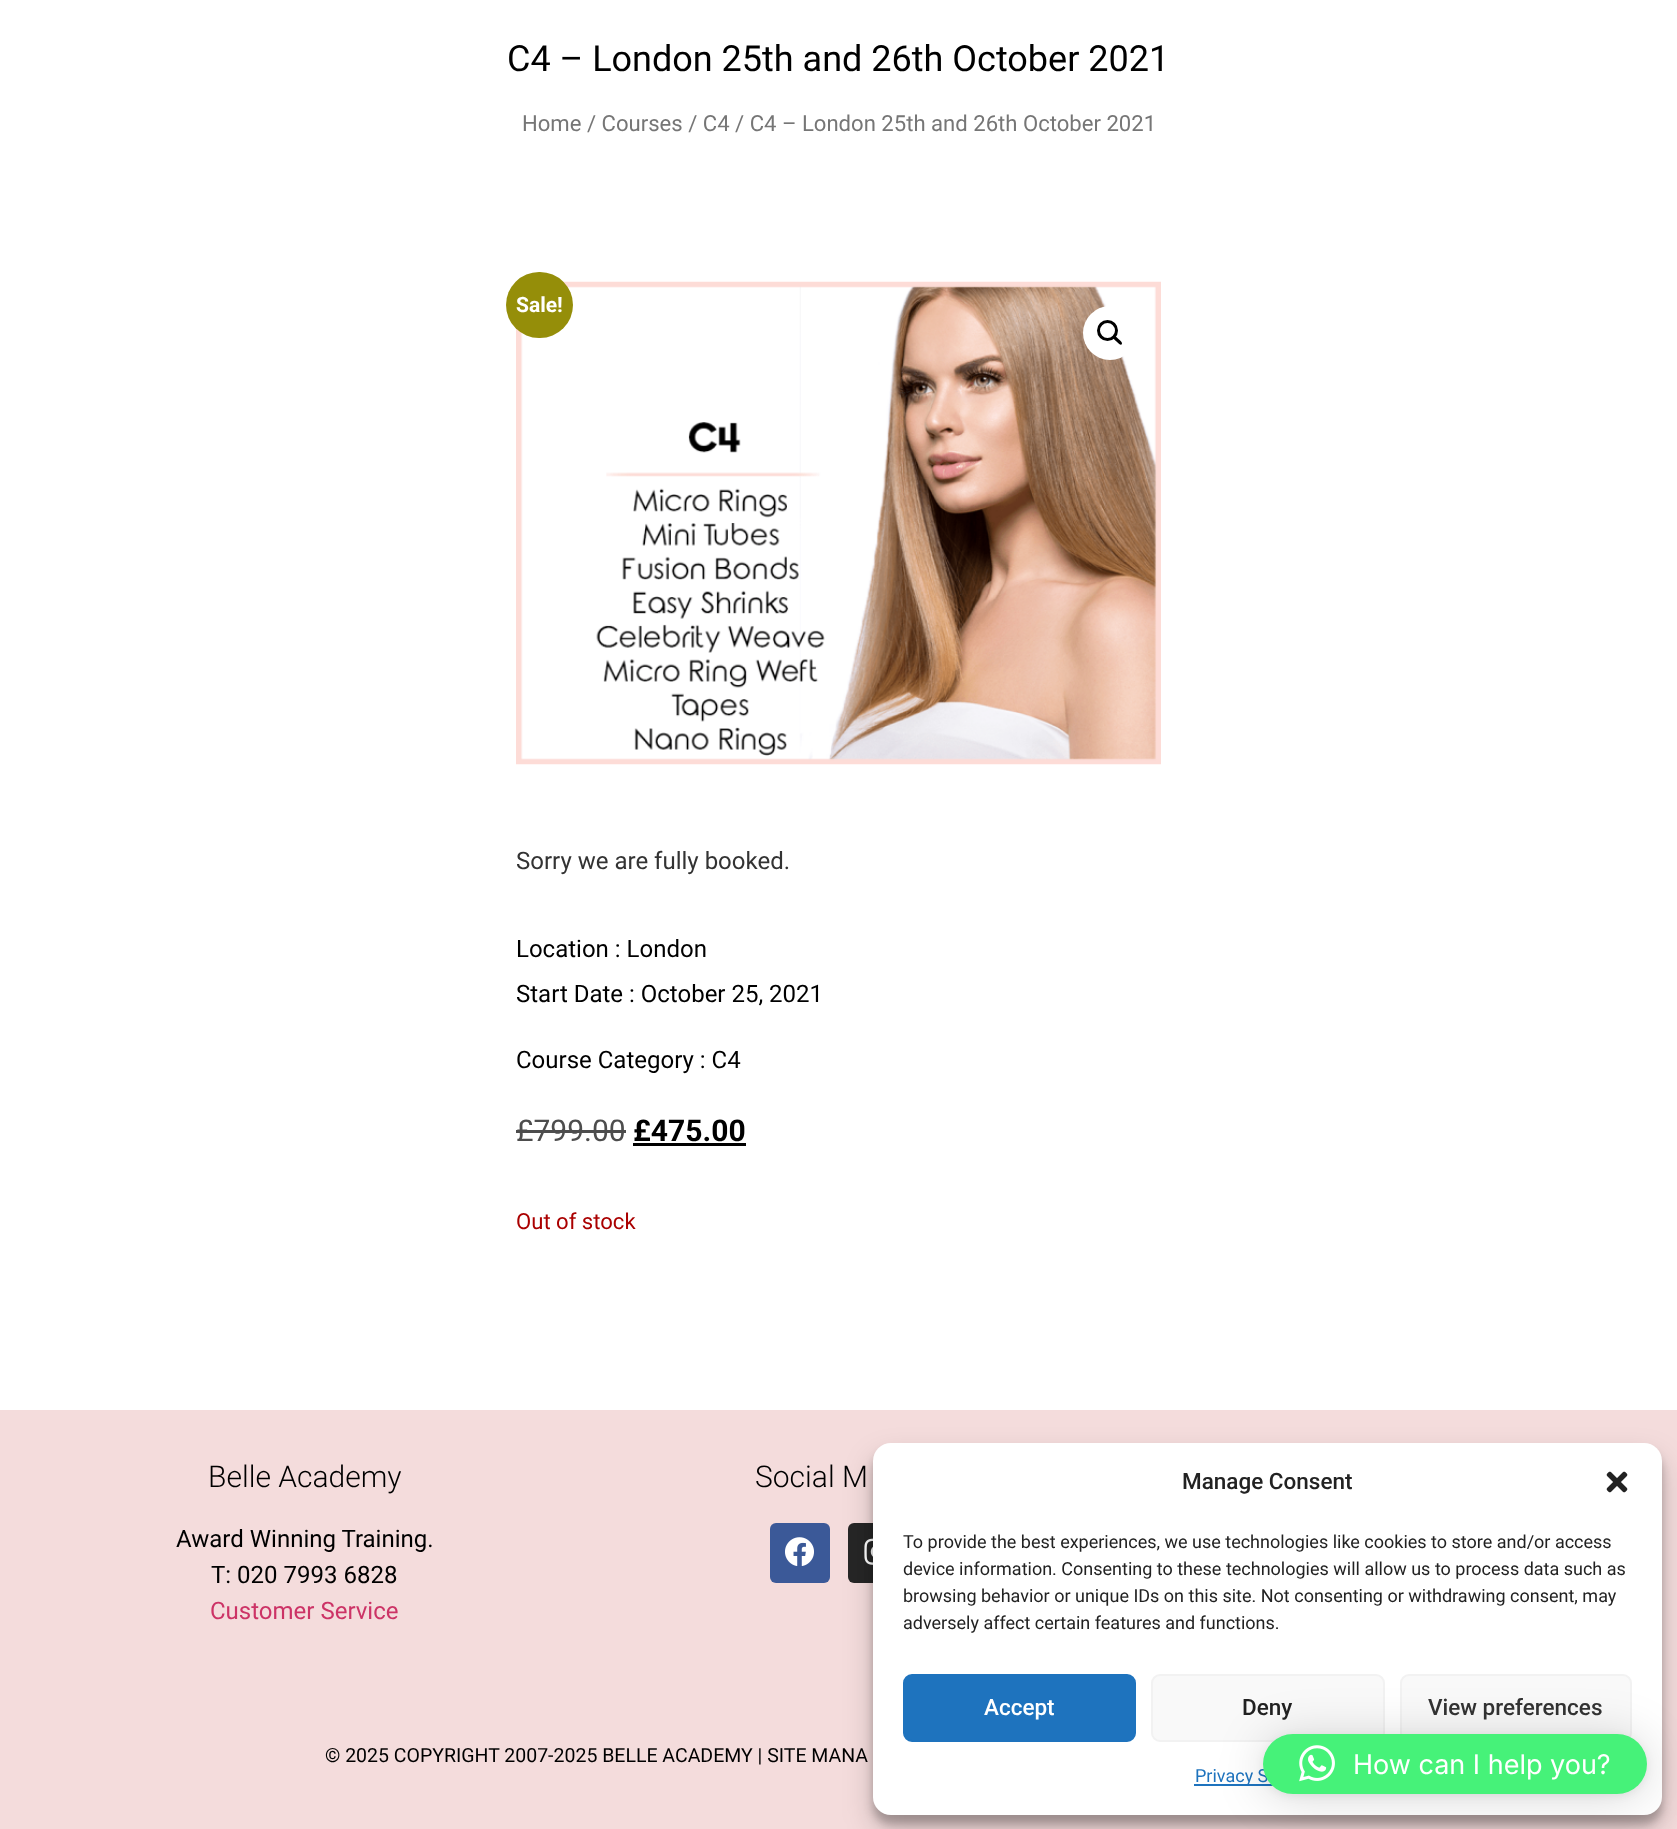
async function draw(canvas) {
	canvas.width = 1677;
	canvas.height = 1829;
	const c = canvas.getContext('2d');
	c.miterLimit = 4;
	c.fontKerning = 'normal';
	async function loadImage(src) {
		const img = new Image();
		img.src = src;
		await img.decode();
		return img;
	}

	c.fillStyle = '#fff';
	c.fillRect(0, 0, 1677, 1829);
	c.font = '36px Roboto';
	c.fillStyle = '#000';
	c.fillText('C4 – London 25th and 26th October 2021', 507, 71);
	c.font = '22.1px Roboto';
	c.fillStyle = '#767676';
	c.fillText('Home / Courses / C4 / C4 – London 25th and 26th October 2021', 522, 131);
	c.drawImage(await loadImage('img1.png'), 516, 281, 645, 484);
	c.fillStyle = '#fff';
	c.beginPath();
	c.arc(1110, 333, 27, 0, 2 * Math.PI);
	c.fill();
	c.beginPath();
	c.arc(1107.5, 330.5, 9, 0, 2 * Math.PI);
	c.strokeStyle = '#000';
	c.lineWidth = 3;
	c.stroke();
	c.fillStyle = '#000';
	c.beginPath();
	c.moveTo(1113.5, 336);
	c.bezierCurveTo(1115, 334.5, 1117.5, 338, 1118.5, 339);
	c.bezierCurveTo(1119.5, 340, 1123.5, 343, 1121.5, 344.5);
	c.bezierCurveTo(1120, 346, 1117.5, 342, 1116.5, 341.5);
	c.bezierCurveTo(1115.5, 340.5, 1111.5, 337.5, 1113.5, 336);
	c.closePath();
	c.fill();
	c.fillStyle = '#958e09';
	c.beginPath();
	c.roundRect(506, 272, 67, 66, 33);
	c.fill();
	c.font = 'bold 21px Roboto';
	c.fillStyle = '#fff';
	c.fillText('Sale!', 516, 312);
	c.font = '24px Roboto';
	c.fillStyle = '#333';
	c.fillText('Sorry we are fully booked.', 516, 869);
	c.fillStyle = '#000';
	for (const [text, x, y] of [
		['Location : London', 516, 957],
		['Start Date : October 25, 2021', 516, 1002],
		['Course Category : C4', 516, 1068],
	]) {
		c.fillText(text, x, y);
	}
	c.font = '30px Roboto';
	c.fillStyle = '#4d4d4d';
	c.fillText('£799.00', 516, 1141);
	c.fillRect(516, 1130, 110, 3);
	c.font = 'bold 30px Roboto';
	c.fillStyle = '#000';
	c.fillText('£475.00', 633, 1141);
	c.fillRect(633, 1143, 113, 3);
	c.font = '22.1px Roboto';
	c.fillStyle = '#a00';
	c.fillText('Out of stock', 516, 1229);
	c.fillStyle = '#f4dcdc';
	c.fillRect(0, 1410, 1677, 419);
	c.font = '300 30px Roboto';
	c.fillStyle = '#000';
	c.fillText('Belle Academy', 208, 1487);
	c.font = '24px Roboto';
	c.fillText('Award Winning Training.', 176, 1547);
	c.fillText('T: 020 7993 6828', 211, 1583);
	c.fillStyle = '#c36';
	c.fillText('Customer Service', 210, 1619);
	c.font = '300 30px Roboto';
	c.fillStyle = '#000';
	c.fillText('Social M', 755, 1487);
	c.fillStyle = '#3b5998';
	c.beginPath();
	c.roundRect(770, 1523, 60, 60, 6);
	c.fill();
	c.drawImage(await loadImage('img2.png'), 785, 1537, 29, 29);
	c.fillStyle = '#262626';
	c.beginPath();
	c.roundRect(848, 1523, 60, 60, 6);
	c.fill();
	c.drawImage(await loadImage('img3.png'), 864, 1538, 9, 27);
	c.font = '19.5px Roboto';
	c.fillStyle = '#000';
	c.fillText('© 2025 COPYRIGHT 2007-2025 BELLE ACADEMY | SITE MANA', 325, 1762);
	c.fillStyle = '#0000003b';
	c.filter = 'blur(4.5px)';
	c.beginPath();
	c.roundRect(873, 1452, 789, 372, 18);
	c.fill();
	c.filter = 'none';
	c.fillStyle = '#00000030';
	c.filter = 'blur(15px)';
	c.beginPath();
	c.roundRect(873, 1458, 789, 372, 18);
	c.fill();
	c.filter = 'none';
	c.fillStyle = '#fff';
	c.beginPath();
	c.roundRect(873, 1443, 789, 372, 18);
	c.fill();
	c.font = '500 22.5px Roboto';
	c.fillStyle = '#222';
	c.fillText('Manage Consent', 1182, 1489);
	c.drawImage(await loadImage('img4.png'), 1606, 1471, 22, 22);
	c.font = '18px Roboto';
	for (const [text, x, y] of [
		['To provide the best experiences, we use technologies like cookies to store and/or access', 903, 1548],
		['device information. Consenting to these technologies will allow us to process data such as', 903, 1575],
		['browsing behavior or unique IDs on this site. Not consenting or withdrawing consent, may', 903, 1602],
		['adversely affect certain features and functions.', 903, 1629],
	]) {
		c.fillText(text, x, y);
	}
	c.fillStyle = '#1e73be';
	c.beginPath();
	c.roundRect(904, 1675, 231, 66, 8);
	c.fill();
	c.strokeStyle = '#1e73be';
	c.lineWidth = 2;
	c.stroke();
	c.font = '500 22.5px Roboto';
	c.fillStyle = '#fff';
	c.fillText('Accept', 984, 1715);
	c.fillStyle = '#f9f9f9';
	c.beginPath();
	c.roundRect(1152, 1675, 232, 66, 8);
	c.fill();
	c.strokeStyle = '#f2f2f2';
	c.stroke();
	c.fillStyle = '#222';
	c.fillText('Deny', 1242, 1715);
	c.fillStyle = '#f9f9f9';
	c.beginPath();
	c.roundRect(1401, 1675, 230, 66, 8);
	c.fill();
	c.stroke();
	c.fillStyle = '#333';
	c.fillText('View preferences', 1428, 1715);
	c.fillStyle = '#1e73be';
	c.fillRect(1194, 1784, 79, 2);
	c.font = '18px Roboto';
	c.fillText('Privacy S', 1195, 1782);
	c.fillStyle = '#00000029';
	c.filter = 'blur(24px)';
	c.beginPath();
	c.roundRect(1263, 1737, 384, 60, 30);
	c.fill();
	c.filter = 'none';
	c.fillStyle = '#0000000f';
	c.filter = 'blur(4.5px)';
	c.beginPath();
	c.roundRect(1263, 1736, 384, 60, 30);
	c.fill();
	c.filter = 'none';
	c.fillStyle = '#46f279';
	c.beginPath();
	c.roundRect(1263, 1734, 384, 60, 30);
	c.fill();
	c.drawImage(await loadImage('img5.png'), 1299, 1745, 36, 37);
	c.font = '27px Inter';
	c.fillStyle = '#fff';
	c.fillText('How can I help you?', 1353, 1774);
}

draw(document.querySelector('canvas'));
